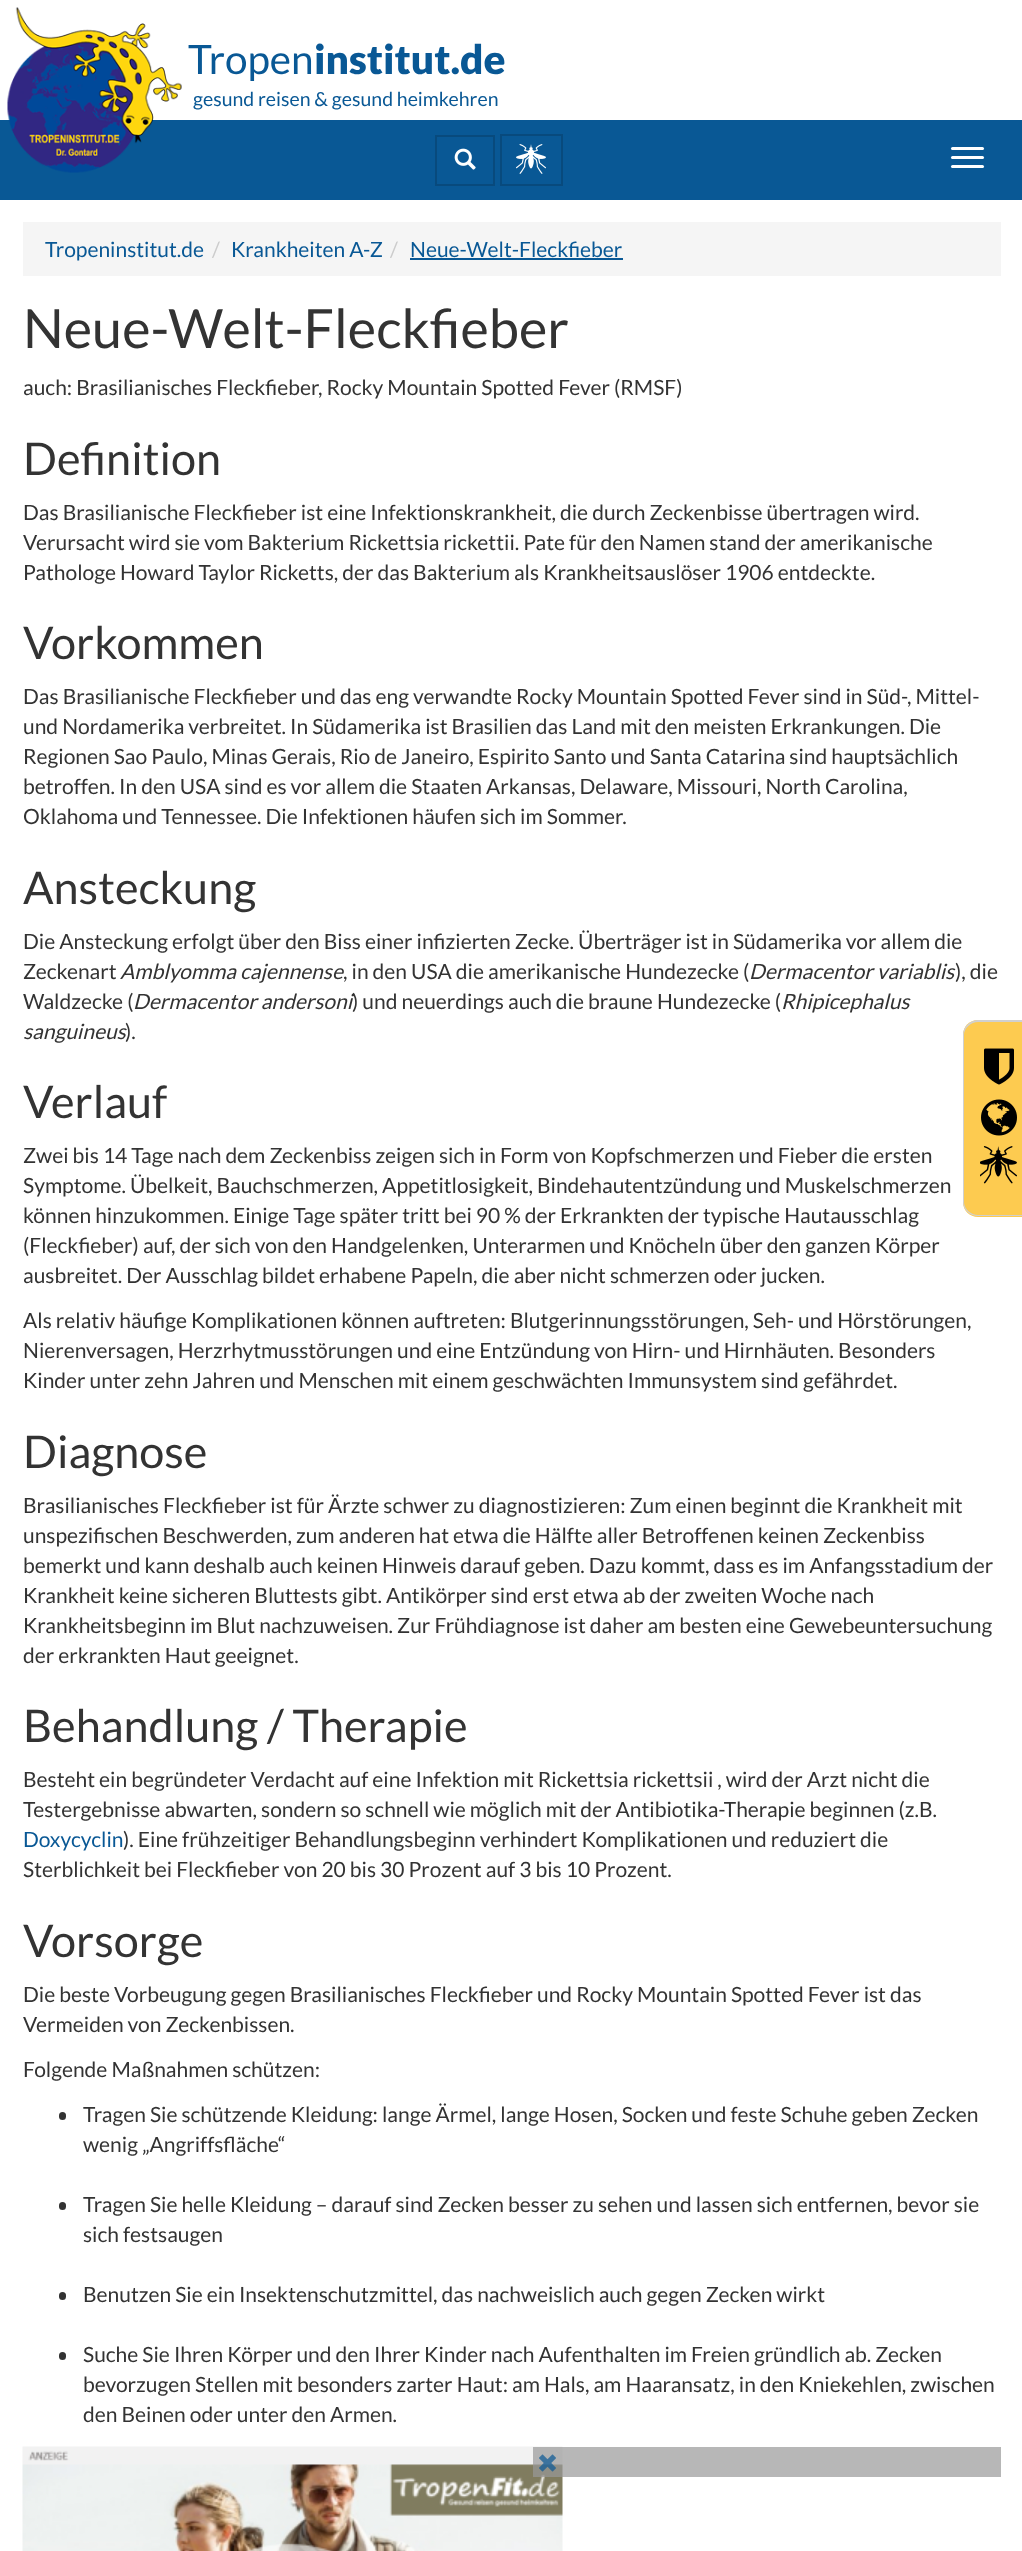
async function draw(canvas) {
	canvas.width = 1022;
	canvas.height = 2551;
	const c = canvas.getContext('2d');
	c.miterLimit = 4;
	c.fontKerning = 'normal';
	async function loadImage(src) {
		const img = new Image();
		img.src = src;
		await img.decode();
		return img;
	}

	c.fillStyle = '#fff';
	c.fillRect(0, 0, 1022, 2551);
	c.fillStyle = '#095895';
	c.fillRect(0, 120, 1022, 80);
	c.drawImage(await loadImage('img1.png'), 7, 7, 175, 166);
	c.font = '40.5px Lato';
	c.fillText('Tropen', 188, 74);
	c.font = '900 40.5px Lato';
	c.fillText('institut.de', 314, 74);
	c.font = '19.5px Lato';
	c.fillText('gesund reisen & gesund heimkehren', 193, 106);
	c.strokeStyle = '#084a7d';
	c.lineWidth = 2;
	c.strokeRect(436, 136, 58, 49);
	c.drawImage(await loadImage('img2.png'), 454, 148, 22, 22);
	c.strokeRect(501, 135, 61, 50);
	c.drawImage(await loadImage('img3.png'), 516, 144, 30, 30);
	c.fillStyle = '#fff';
	c.beginPath();
	c.roundRect(951, 147, 33, 3, 1.5);
	c.fill();
	c.beginPath();
	c.roundRect(951, 156, 33, 3, 1.5);
	c.fill();
	c.beginPath();
	c.roundRect(951, 165, 33, 3, 1.5);
	c.fill();
	c.fillStyle = '#f5f5f5';
	c.fillRect(23, 222, 978, 54);
	c.font = '21px Lato';
	c.fillStyle = '#095895';
	c.fillText('Tropeninstitut.de', 45, 257);
	c.fillStyle = '#ccc';
	c.fillText('/', 212, 257);
	c.fillStyle = '#095895';
	c.fillText('Krankheiten A-Z', 231, 257);
	c.fillStyle = '#ccc';
	c.fillText('/', 390, 257);
	c.fillStyle = '#095895';
	c.fillText('Neue-Welt-Fleckfieber', 410, 257);
	c.fillRect(410, 258, 213, 2);
	c.font = '54px Lato';
	c.fillStyle = '#333';
	c.fillText('Neue-Welt-Fleckfieber', 23, 348);
	c.font = '21px Lato';
	c.fillText('auch: Brasilianisches Fleckfieber, Rocky Mountain Spotted Fever (RMSF)', 23, 395);
	c.font = '45px Lato';
	c.fillText('Definition', 23, 475);
	c.font = '21px Lato';
	for (const [text, x, y] of [
		['Das Brasilianische Fleckfieber ist eine Infektionskrankheit, die durch Zeckenbisse übertragen wird.', 23, 520],
		['Verursacht wird sie vom Bakterium Rickettsia rickettii. Pate für den Namen stand der amerikanische', 23, 550],
		['Pathologe Howard Taylor Ricketts, der das Bakterium als Krankheitsauslöser 1906 entdeckte.', 23, 580],
	]) {
		c.fillText(text, x, y);
	}
	c.font = '45px Lato';
	c.fillText('Vorkommen', 23, 659);
	c.font = '21px Lato';
	for (const [text, x, y] of [
		['Das Brasilianische Fleckfieber und das eng verwandte Rocky Mountain Spotted Fever sind in Süd-, Mittel-', 23, 704],
		['und Nordamerika verbreitet. In Südamerika ist Brasilien das Land mit den meisten Erkrankungen. Die', 23, 734],
		['Regionen Sao Paulo, Minas Gerais, Rio de Janeiro, Espirito Santo und Santa Catarina sind hauptsächlich', 23, 764],
		['betroffen. In den USA sind es vor allem die Staaten Arkansas, Delaware, Missouri, North Carolina,', 23, 794],
		['Oklahoma und Tennessee. Die Infektionen häufen sich im Sommer.', 23, 824],
	]) {
		c.fillText(text, x, y);
	}
	c.font = '45px Lato';
	c.fillText('Ansteckung', 23, 904);
	c.font = '21px Lato';
	c.fillText('Die Ansteckung erfolgt über den Biss einer infizierten Zecke. Überträger ist in Südamerika vor allem die', 23, 949);
	c.fillText('Zeckenart', 23, 979);
	c.font = 'italic 21px Lato';
	c.fillText('Amblyomma cajennense', 120, 979);
	c.font = '21px Lato';
	c.fillText(', in den USA die amerikanische Hundezecke (', 343, 979);
	c.font = 'italic 21px Lato';
	c.fillText('Dermacentor variablis', 749, 979);
	c.font = '21px Lato';
	c.fillText('), die', 955, 979);
	c.fillText('Waldzecke (', 23, 1009);
	c.font = 'italic 21px Lato';
	c.fillText('Dermacentor andersoni', 133, 1009);
	c.font = '21px Lato';
	c.fillText(') und neuerdings auch die braune Hundezecke (', 352, 1009);
	c.font = 'italic 21px Lato';
	c.fillText('Rhipicephalus', 781, 1009);
	c.fillText('sanguineus', 23, 1039);
	c.font = '21px Lato';
	c.fillText(').', 125, 1039);
	c.font = '45px Lato';
	c.fillText('Verlauf', 23, 1118);
	c.font = '21px Lato';
	for (const [text, x, y] of [
		['Zwei bis 14 Tage nach dem Zeckenbiss zeigen sich in Form von Kopfschmerzen und Fieber die ersten', 23, 1163],
		['Symptome. Übelkeit, Bauchschmerzen, Appetitlosigkeit, Bindehautentzündung und Muskelschmerzen', 23, 1193],
		['können hinzukommen. Einige Tage später tritt bei 90 % der Erkrankten der typische Hautausschlag', 23, 1223],
		['(Fleckfieber) auf, der sich von den Handgelenken, Unterarmen und Knöcheln über den ganzen Körper', 23, 1253],
		['ausbreitet. Der Ausschlag bildet erhabene Papeln, die aber nicht schmerzen oder jucken.', 23, 1283],
		['Als relativ häufige Komplikationen können auftreten: Blutgerinnungsstörungen, Seh- und Hörstörungen,', 23, 1328],
		['Nierenversagen, Herzrhytmusstörungen und eine Entzündung von Hirn- und Hirnhäuten. Besonders', 23, 1358],
		['Kinder unter zehn Jahren und Menschen mit einem geschwächten Immunsystem sind gefährdet.', 23, 1388],
	]) {
		c.fillText(text, x, y);
	}
	c.font = '45px Lato';
	c.fillText('Diagnose', 23, 1468);
	c.font = '21px Lato';
	for (const [text, x, y] of [
		['Brasilianisches Fleckfieber ist für Ärzte schwer zu diagnostizieren: Zum einen beginnt die Krankheit mit', 23, 1513],
		['unspezifischen Beschwerden, zum anderen hat etwa die Hälfte aller Betroffenen keinen Zeckenbiss', 23, 1543],
		['bemerkt und kann deshalb auch keinen Hinweis darauf geben. Dazu kommt, dass es im Anfangsstadium der', 23, 1573],
		['Krankheit keine sicheren Bluttests gibt. Antikörper sind erst etwa ab der zweiten Woche nach', 23, 1603],
		['Krankheitsbeginn im Blut nachzuweisen. Zur Frühdiagnose ist daher am besten eine Gewebeuntersuchung', 23, 1633],
		['der erkrankten Haut geeignet.', 23, 1663],
	]) {
		c.fillText(text, x, y);
	}
	c.font = '45px Lato';
	c.fillText('Behandlung / Therapie', 23, 1742);
	c.font = '21px Lato';
	c.fillText('Besteht ein begründeter Verdacht auf eine Infektion mit Rickettsia rickettsii , wird der Arzt nicht die', 23, 1787);
	c.fillText('Testergebnisse abwarten, sondern so schnell wie möglich mit der Antibiotika-Therapie beginnen (z.B.', 23, 1817);
	c.fillStyle = '#095895';
	c.fillText('Doxycyclin', 23, 1847);
	c.fillStyle = '#333';
	c.fillText('). Eine frühzeitiger Behandlungsbeginn verhindert Komplikationen und reduziert die', 123, 1847);
	c.fillText('Sterblichkeit bei Fleckfieber von 20 bis 30 Prozent auf 3 bis 10 Prozent.', 23, 1877);
	c.font = '45px Lato';
	c.fillText('Vorsorge', 23, 1957);
	c.font = '21px Lato';
	for (const [text, x, y] of [
		['Die beste Vorbeugung gegen Brasilianisches Fleckfieber und Rocky Mountain Spotted Fever ist das', 23, 2002],
		['Vermeiden von Zeckenbissen.', 23, 2032],
		['Folgende Maßnahmen schützen:', 23, 2077],
	]) {
		c.fillText(text, x, y);
	}
	c.beginPath();
	c.roundRect(59, 2112, 7, 8, 3.5);
	c.fill();
	c.fillText('Tragen Sie schützende Kleidung: lange Ärmel, lange Hosen, Socken und feste Schuhe geben Zecken', 83, 2122);
	c.fillText('wenig „Angriffsfläche“', 83, 2152);
	c.beginPath();
	c.roundRect(59, 2202, 7, 8, 3.5);
	c.fill();
	c.fillText('Tragen Sie helle Kleidung – darauf sind Zecken besser zu sehen und lassen sich entfernen, bevor sie', 83, 2212);
	c.fillText('sich festsaugen', 83, 2242);
	c.beginPath();
	c.roundRect(59, 2292, 7, 8, 3.5);
	c.fill();
	c.fillText('Benutzen Sie ein Insektenschutzmittel, das nachweislich auch gegen Zecken wirkt', 83, 2302);
	c.beginPath();
	c.roundRect(59, 2352, 7, 8, 3.5);
	c.fill();
	for (const [text, x, y] of [
		['Suche Sie Ihren Körper und den Ihrer Kinder nach Aufenthalten im Freien gründlich ab. Zecken', 83, 2362],
		['bevorzugen Stellen mit besonders zarter Haut: am Hals, am Haaransatz, in den Kniekehlen, zwischen', 83, 2392],
		['den Beinen oder unter den Armen.', 83, 2422],
	]) {
		c.fillText(text, x, y);
	}
	c.drawImage(await loadImage('img4.png'), 22, 2446, 541, 105);
	c.fillStyle = '#999999b3';
	c.fillRect(533, 2447, 468, 30);
	c.drawImage(await loadImage('img5.png'), 539, 2454, 17, 18);
	c.fillStyle = '#fdcb50';
	c.beginPath();
	c.moveTo(978, 1020);
	c.lineTo(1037, 1020);
	c.lineTo(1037, 1217);
	c.lineTo(978, 1217);
	c.bezierCurveTo(969.5, 1217, 963, 1210.5, 963, 1202);
	c.lineTo(963, 1035);
	c.bezierCurveTo(963, 1026.5, 969.5, 1020, 978, 1020);
	c.closePath();
	c.fill();
	c.fillStyle = '#d0d0d0';
	c.beginPath();
	c.moveTo(978, 1020);
	c.lineTo(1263, 1020);
	c.lineTo(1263, 1216);
	c.lineTo(978, 1216);
	c.bezierCurveTo(970, 1216, 963, 1210, 963, 1202);
	c.lineTo(963, 1035);
	c.bezierCurveTo(963, 1027, 970, 1020, 978, 1020);
	c.closePath();
	c.moveTo(978, 1022);
	c.lineTo(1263, 1022);
	c.lineTo(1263, 1215);
	c.lineTo(978, 1215);
	c.bezierCurveTo(971, 1215, 964, 1209, 964, 1202);
	c.lineTo(964, 1035);
	c.bezierCurveTo(964, 1028, 971, 1022, 978, 1022);
	c.closePath();
	c.fill('evenodd');
	c.drawImage(await loadImage('img6.png'), 984, 1048, 30, 37);
	c.drawImage(await loadImage('img7.png'), 981, 1099, 36, 37);
	c.drawImage(await loadImage('img8.png'), 980, 1146, 37, 38);
}

draw(document.querySelector('canvas'));
